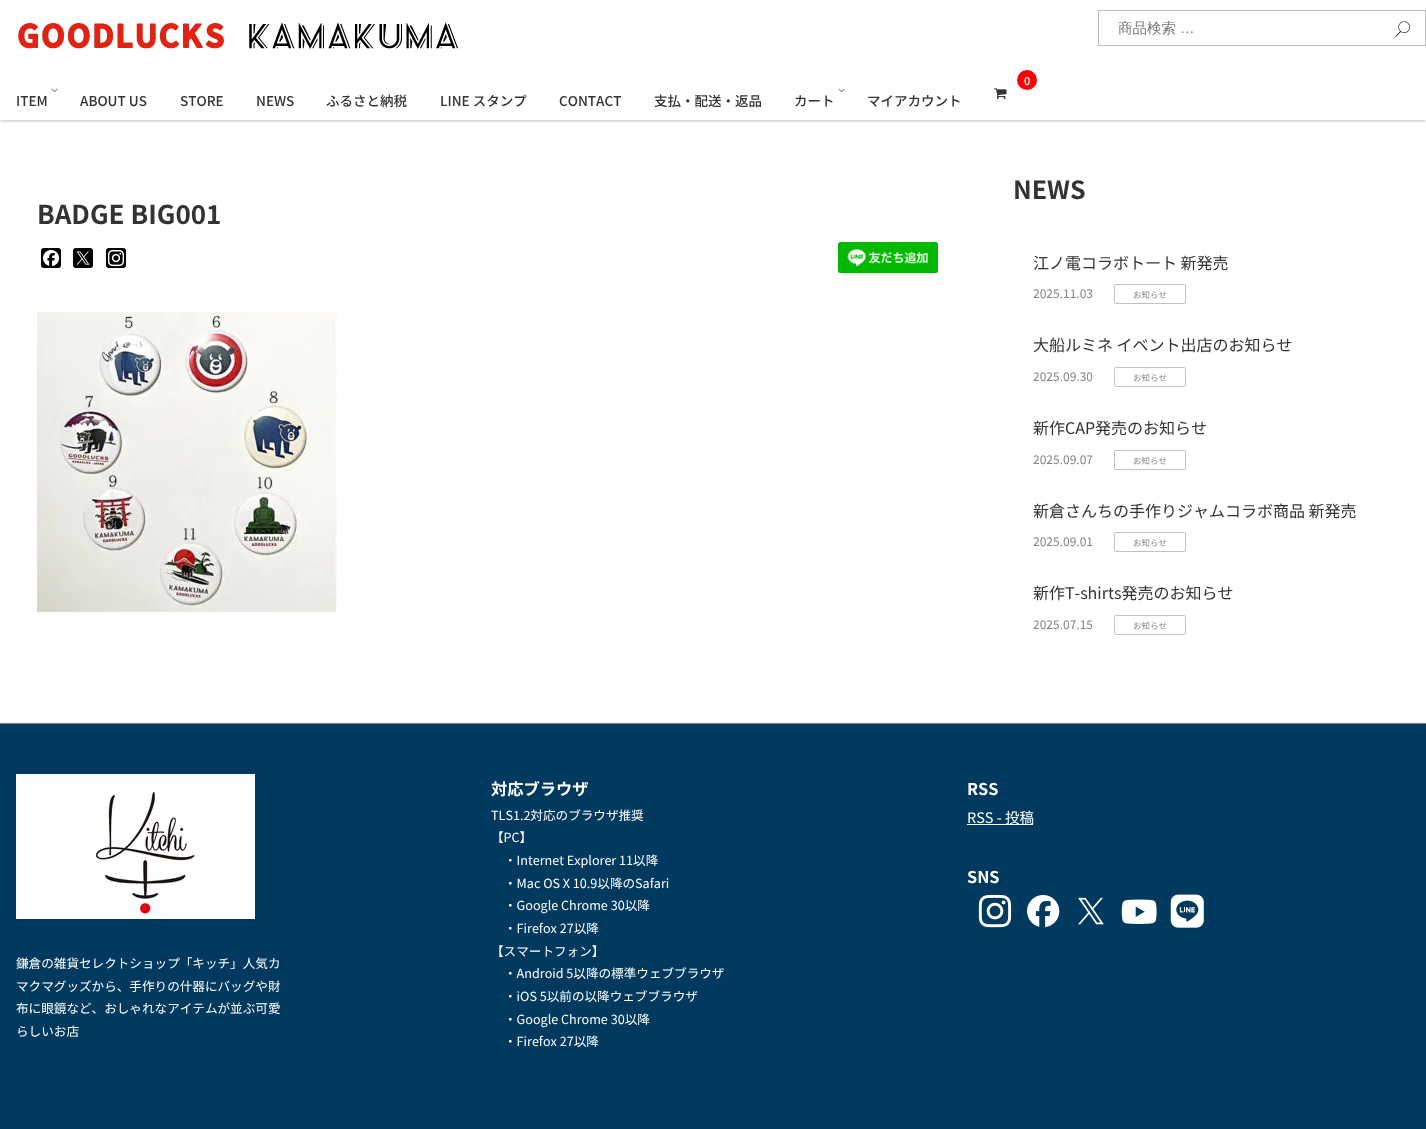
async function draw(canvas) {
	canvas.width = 1426;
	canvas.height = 1129;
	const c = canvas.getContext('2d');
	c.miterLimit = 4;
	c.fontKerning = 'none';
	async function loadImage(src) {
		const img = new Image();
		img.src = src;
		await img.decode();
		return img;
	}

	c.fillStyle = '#fff';
	c.fillRect(0, 0, 1426, 1129);
	c.save();
	c.beginPath();
	c.rect(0, 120, 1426, 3);
	c.clip();
	c.fillStyle = '#00000040';
	c.filter = 'blur(1.5px)';
	c.beginPath();
	c.rect(0, 1, 1426, 120);
	c.fill();
	c.filter = 'none';
	c.restore();
	c.drawImage(await loadImage('img1.png'), 18, 22, 440, 27);
	c.strokeStyle = '#bbb';
	c.strokeRect(1098.5, 10.5, 327, 35);
	c.font = '500 14.5px WenQuanYi Zen Hei';
	c.fillStyle = '#757575';
	c.fillText('商品検索', 1118, 33);
	c.font = '14.5px Liberation Sans';
	c.fillText('…', 1180, 33);
	c.drawImage(await loadImage('img2.png'), 1395, 21, 15, 16);
	c.fillStyle = '#f00';
	c.beginPath();
	c.arc(1027, 80, 10, 0, 2 * Math.PI);
	c.fill();
	c.font = '500 11px Noto Sans JP';
	c.fillStyle = '#fff';
	c.fillText('0', 1024, 85);
	c.drawImage(await loadImage('img3.png'), 994, 88, 13, 11);
	c.drawImage(await loadImage('img4.png'), 51, 88, 7, 5);
	c.font = '500 13.5px Noto Sans JP';
	c.fillStyle = '#333';
	for (const [text, x, y] of [
		['ITEM', 16, 106],
		['ABOUT US', 80, 106],
		['STORE', 180, 106],
		['NEWS', 256, 106],
		['ふるさと納税', 326, 106],
		['LINE スタンプ', 440, 106],
		['CONTACT', 559, 106],
		['支払・配送・返品', 654, 106],
	]) {
		c.fillText(text, x, y);
	}
	c.drawImage(await loadImage('img4.png'), 838, 88, 7, 5);
	c.fillText('カート', 794, 106);
	c.fillText('マイアカウント', 867, 106);
	c.font = 'bold 26px Noto Sans JP';
	c.fillText('BADGE BIG001', 37, 224);
	c.fillStyle = '#000';
	c.beginPath();
	c.roundRect(41, 248, 20, 20, 3);
	c.fill();
	c.drawImage(await loadImage('img5.png'), 43, 250, 17, 16);
	c.beginPath();
	c.roundRect(73, 248, 20, 20, 3);
	c.fill();
	c.drawImage(await loadImage('img6.png'), 76, 251, 14, 14);
	c.beginPath();
	c.roundRect(106, 248, 20, 20, 3);
	c.fill();
	c.drawImage(await loadImage('img7.png'), 107, 250, 18, 17);
	c.drawImage(await loadImage('img8.png'), 838, 242, 100, 31);
	c.drawImage(await loadImage('img9.png'), 37, 312, 300, 300);
	c.font = 'bold 25px Noto Sans JP';
	c.fillStyle = '#333';
	c.fillText('NEWS', 1013, 199);
	c.font = '16px Noto Sans JP';
	c.fillText('江ノ電コラボトート 新発売', 1033, 269);
	c.font = '12px Noto Sans JP';
	c.fillStyle = '#858585';
	c.fillText('2025.11.03', 1033, 298);
	c.beginPath();
	c.roundRect(1114.5, 284.5, 71, 19, 1.5);
	c.strokeStyle = '#c2c2c2';
	c.stroke();
	c.font = '8.5px Noto Sans JP';
	c.fillText('お知らせ', 1133, 298);
	c.font = '16px Noto Sans JP';
	c.fillStyle = '#333';
	c.fillText('大船ルミネ イベント出店のお知らせ', 1033, 351);
	c.font = '12px Noto Sans JP';
	c.fillStyle = '#858585';
	c.fillText('2025.09.30', 1033, 381);
	c.beginPath();
	c.roundRect(1114.5, 367.5, 71, 19, 1.5);
	c.stroke();
	c.font = '8.5px Noto Sans JP';
	c.fillText('お知らせ', 1133, 381);
	c.font = '16px Noto Sans JP';
	c.fillStyle = '#333';
	c.fillText('新作CAP発売のお知らせ', 1033, 434);
	c.font = '12px Noto Sans JP';
	c.fillStyle = '#858585';
	c.fillText('2025.09.07', 1033, 464);
	c.beginPath();
	c.roundRect(1114.5, 450.5, 71, 19, 1.5);
	c.stroke();
	c.font = '8.5px Noto Sans JP';
	c.fillText('お知らせ', 1133, 464);
	c.font = '16px Noto Sans JP';
	c.fillStyle = '#333';
	c.fillText('新倉さんちの手作りジャムコラボ商品 新発売', 1033, 517);
	c.font = '12px Noto Sans JP';
	c.fillStyle = '#858585';
	c.fillText('2025.09.01', 1033, 546);
	c.beginPath();
	c.roundRect(1114.5, 532.5, 71, 19, 1.5);
	c.stroke();
	c.font = '8.5px Noto Sans JP';
	c.fillText('お知らせ', 1133, 546);
	c.font = '16px Noto Sans JP';
	c.fillStyle = '#333';
	c.fillText('新作T-shirts発売のお知らせ', 1033, 599);
	c.font = '12px Noto Sans JP';
	c.fillStyle = '#858585';
	c.fillText('2025.07.15', 1033, 629);
	c.beginPath();
	c.roundRect(1114.5, 615.5, 71, 19, 1.5);
	c.stroke();
	c.font = '8.5px Noto Sans JP';
	c.fillText('お知らせ', 1133, 629);
	c.fillStyle = '#0000001a';
	c.filter = 'blur(2px)';
	c.beginPath();
	c.rect(0, 723, 1426, 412);
	c.fill();
	c.filter = 'none';
	c.fillStyle = '#013a5e';
	c.fillRect(0, 724, 1426, 405);
	c.fillStyle = '#808080';
	c.fillRect(0, 723, 1426, 1);
	c.font = 'bold 16.25px Noto Sans JP';
	c.fillStyle = '#fff';
	c.fillText('対応ブラウザ', 491, 795);
	c.font = '12.6px Noto Sans JP';
	for (const [text, x, y] of [
		['TLS1.2対応のブラウザ推奨', 491, 820],
		['【PC】', 491, 842],
		['・Internet Explorer 11以降', 504, 865],
		['・Mac OS X 10.9以降のSafari', 504, 888],
		['・Google Chrome 30以降', 504, 910],
		['・Firefox 27以降', 504, 933],
		['【スマートフォン】', 491, 956],
		['・Android 5以降の標準ウェブブラウザ', 504, 978],
		['・iOS 5以前の以降ウェブブラウザ', 504, 1001],
		['・Google Chrome 30以降', 504, 1024],
		['・Firefox 27以降', 504, 1046],
	]) {
		c.fillText(text, x, y);
	}
	c.font = 'bold 16.25px Noto Sans JP';
	c.fillText('RSS', 967, 795);
	c.fillRect(967, 824, 66, 1);
	c.font = '14.5px Noto Sans JP';
	c.fillText('RSS - 投稿', 967, 823);
	c.font = 'bold 16.25px Noto Sans JP';
	c.fillText('SNS', 967, 883);
	c.drawImage(await loadImage('img10.png'), 978, 894, 34, 34);
	c.drawImage(await loadImage('img11.png'), 1027, 895, 33, 33);
	c.drawImage(await loadImage('img12.png'), 1078, 897, 26, 28);
	c.drawImage(await loadImage('img13.png'), 1121, 899, 36, 25);
	c.drawImage(await loadImage('img14.png'), 1170, 894, 34, 34);
	c.drawImage(await loadImage('img15.png'), 16, 774, 239, 145);
	c.font = '12.6px Noto Sans JP';
	for (const [text, x, y] of [
		['鎌倉の雑貨セレクトショップ「キッチ」人気カ', 16, 968],
		['マクマグッズから、手作りの什器にバッグや財', 16, 991],
		['布に眼鏡など、おしゃれなアイテムが並ぶ可愛', 16, 1013],
		['らしいお店', 16, 1036],
	]) {
		c.fillText(text, x, y);
	}
}

draw(document.querySelector('canvas'));
